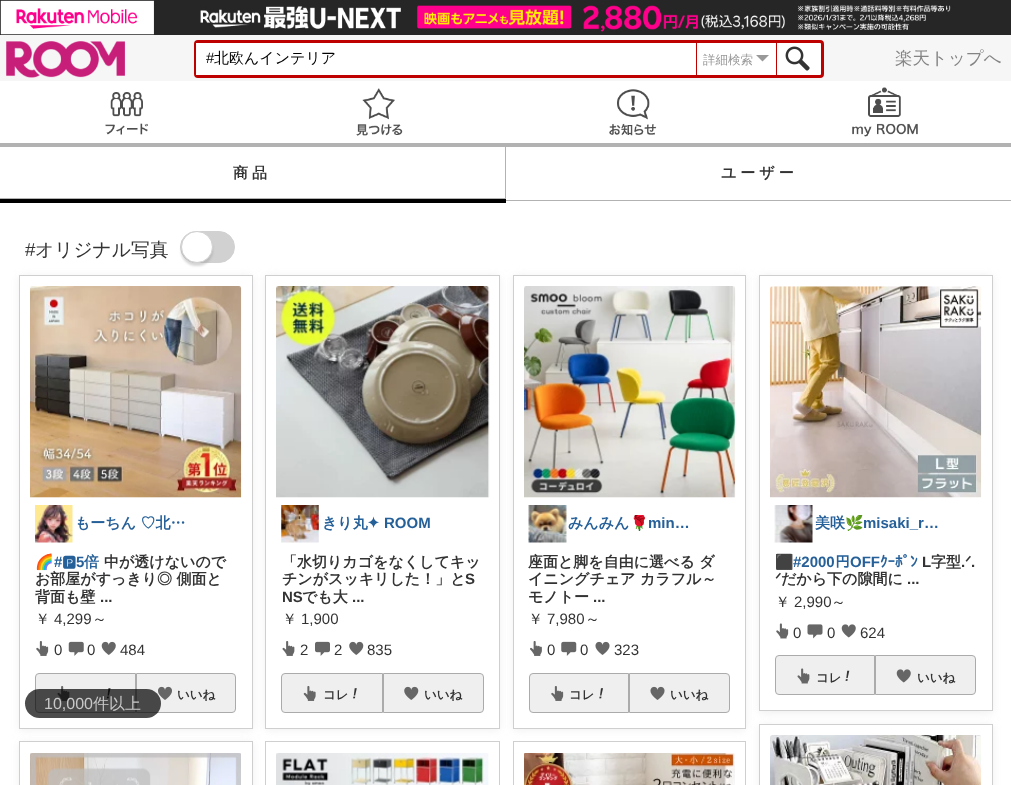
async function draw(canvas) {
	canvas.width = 1011;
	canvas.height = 785;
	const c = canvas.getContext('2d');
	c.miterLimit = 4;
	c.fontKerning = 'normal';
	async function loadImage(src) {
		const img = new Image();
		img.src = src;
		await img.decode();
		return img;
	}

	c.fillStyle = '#fff';
	c.fillRect(0, 0, 1011, 785);
	c.drawImage(await loadImage('img1.png'), 0, 0, 1011, 35);
	c.fillStyle = '#f6f6f6';
	c.fillRect(0, 35, 1011, 46);
	c.fillStyle = '#fff';
	c.beginPath();
	c.roundRect(195.5, 41.5, 627, 35, 2.5);
	c.fill();
	c.strokeStyle = '#bf0000';
	c.lineWidth = 3;
	c.stroke();
	c.fillRect(196, 43, 2, 32);
	c.font = '15px Liberation Sans';
	c.fillStyle = '#000';
	c.fillText('#', 206, 63);
	c.font = '500 15px WenQuanYi Zen Hei';
	c.fillText('北欧んインテリア', 214, 63);
	c.fillStyle = '#bf0000';
	c.fillRect(696, 43, 1, 32);
	c.font = '500 12.5px WenQuanYi Zen Hei';
	c.fillStyle = '#999';
	c.fillText('詳細検索', 703, 64);
	c.beginPath();
	c.moveTo(756, 55);
	c.lineTo(769, 55);
	c.lineTo(762.5, 61.5);
	c.closePath();
	c.fill();
	c.fillStyle = '#bf0000';
	c.fillRect(776, 43, 1, 32);
	c.drawImage(await loadImage('img2.png'), 785, 46, 25, 25);
	c.drawImage(await loadImage('img3.png'), 6, 41, 119, 37);
	c.font = '500 17.5px WenQuanYi Zen Hei';
	c.fillStyle = '#848484';
	c.fillText('楽天トップへ', 895, 64);
	c.drawImage(await loadImage('img4.png'), 356, 88, 47, 48);
	c.fillStyle = '#b2b2b2';
	c.fillRect(506, 143, 505, 4);
	c.drawImage(await loadImage('img5.png'), 852, 87, 66, 50);
	c.fillRect(505, 146, 1, 53);
	c.fillRect(0, 143, 506, 4);
	c.drawImage(await loadImage('img6.png'), 105, 92, 43, 43);
	c.drawImage(await loadImage('img7.png'), 609, 89, 48, 47);
	c.fillStyle = '#000';
	c.fillRect(0, 199, 506, 4);
	c.fillStyle = '#b2b2b2';
	c.fillRect(0, 198, 506, 1);
	c.letterSpacing = '4px';
	c.font = 'bold 15px WenQuanYi Zen Hei';
	c.fillStyle = '#333';
	c.fillText('商品', 233, 178);
	c.fillStyle = '#b2b2b2';
	c.fillRect(506, 200, 505, 1);
	c.fillStyle = '#333';
	c.fillText('ユーザー', 721, 178);
	c.letterSpacing = '0px';
	c.font = '18.75px Liberation Sans';
	c.fillText('#', 25, 256);
	c.font = '500 18.75px WenQuanYi Zen Hei';
	c.fillText('オリジナル写真', 35, 256);
	c.fillStyle = '#d1d1d1';
	c.beginPath();
	c.roundRect(180.5, 231.5, 54, 31, 15.5);
	c.fill();
	c.strokeStyle = '#d1d1d1';
	c.lineWidth = 1;
	c.stroke();
	c.fillStyle = '#99999966';
	c.filter = 'blur(1px)';
	c.beginPath();
	c.roundRect(181, 235, 32, 31, 15.5);
	c.fill();
	c.filter = 'none';
	c.fillStyle = '#fff';
	c.beginPath();
	c.arc(197, 247, 15.5, 0, 2 * Math.PI);
	c.fill();
	c.stroke();
	c.fillStyle = '#efefef';
	c.filter = 'blur(4px)';
	c.beginPath();
	c.roundRect(19, 276, 234, 454, 4);
	c.fill();
	c.filter = 'none';
	c.fillStyle = '#fff';
	c.beginPath();
	c.roundRect(19, 275, 234, 454, 4);
	c.fill();
	c.strokeStyle = '#cfcfcf';
	c.strokeRect(19.5, 275.5, 233, 453);
	c.drawImage(await loadImage('img8.png'), 30, 286, 212, 212);
	c.drawImage(await loadImage('img9.png'), 35, 505, 38, 38);
	c.font = 'bold 15px WenQuanYi Zen Hei';
	c.fillStyle = '#266099';
	c.fillText('もーちん ♡北…', 75, 528);
	c.font = 'bold 15px Noto Color Emoji';
	c.fillStyle = '#333';
	c.fillText('🌈', 35, 567);
	c.font = 'bold 15px Liberation Sans';
	c.fillStyle = '#266099';
	c.fillText('#', 54, 567);
	c.font = 'bold 15px FreeSans';
	c.fillText('🅿', 62, 567);
	c.font = 'bold 15px Liberation Sans';
	c.fillText('5', 76, 567);
	c.font = 'bold 15px WenQuanYi Zen Hei';
	c.fillText('倍', 84, 567);
	c.fillStyle = '#333';
	for (const [text, x, y] of [
		['中が透けないので', 104, 567],
		['お部屋がすっきり◎ 側面と', 35, 584],
		['背面も壁', 35, 602],
	]) {
		c.fillText(text, x, y);
	}
	c.font = 'bold 15px Liberation Sans';
	c.fillText('...', 100, 602);
	c.font = '500 15px WenQuanYi Zen Hei';
	c.fillText('￥', 35, 624);
	c.font = '15px Liberation Sans';
	c.fillText('4,299', 54, 624);
	c.font = '500 15px WenQuanYi Zen Hei';
	c.fillText('～', 92, 624);
	c.drawImage(await loadImage('img10.png'), 36, 641, 13, 15);
	c.font = '15px Liberation Sans';
	c.fillText('0', 54, 655);
	c.drawImage(await loadImage('img11.png'), 68, 641, 16, 15);
	c.fillText('0', 87, 655);
	c.drawImage(await loadImage('img12.png'), 101, 641, 15, 14);
	c.fillText('484', 120, 655);
	c.fillStyle = '#efefef';
	c.beginPath();
	c.roundRect(35.5, 673.5, 100, 39, [3.5, 0, 0, 3.5]);
	c.fill();
	c.strokeStyle = '#ababab';
	c.stroke();
	c.drawImage(await loadImage('img13.png'), 57, 686, 13, 15);
	c.drawImage(await loadImage('img14.png'), 106, 688, 5, 11);
	c.beginPath();
	c.roundRect(136.5, 673.5, 99, 39, [0, 3.5, 3.5, 0]);
	c.fill();
	c.stroke();
	c.drawImage(await loadImage('img15.png'), 158, 686, 14, 14);
	c.font = 'bold 12.5px WenQuanYi Zen Hei';
	c.fillStyle = '#333';
	c.fillText('いいね', 177, 699);
	c.fillStyle = '#efefef';
	c.filter = 'blur(4px)';
	c.beginPath();
	c.roundRect(19, 743, 234, 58, 4);
	c.fill();
	c.filter = 'none';
	c.fillStyle = '#fff';
	c.beginPath();
	c.roundRect(19, 741, 234, 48, 4);
	c.fill();
	c.strokeStyle = '#cfcfcf';
	c.strokeRect(19.5, 741.5, 233, 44);
	c.drawImage(await loadImage('img16.png'), 30, 753, 211, 32);
	c.fillStyle = '#efefef';
	c.filter = 'blur(4px)';
	c.beginPath();
	c.roundRect(265, 276, 235, 454, 4);
	c.fill();
	c.filter = 'none';
	c.fillStyle = '#fff';
	c.beginPath();
	c.roundRect(265, 275, 235, 454, 4);
	c.fill();
	c.strokeRect(265.5, 275.5, 234, 453);
	c.drawImage(await loadImage('img17.png'), 276, 286, 214, 212);
	c.drawImage(await loadImage('img18.png'), 281, 505, 38, 38);
	c.font = 'bold 15px WenQuanYi Zen Hei';
	c.fillStyle = '#266099';
	c.fillText('きり丸', 322, 528);
	c.font = 'bold 15px DejaVu Sans';
	c.fillText('✦', 367, 528);
	c.font = 'bold 15px Liberation Sans';
	c.fillText('ROOM', 384, 528);
	c.font = 'bold 15px WenQuanYi Zen Hei';
	c.fillStyle = '#333';
	c.fillText('「水切りカゴをなくしてキッ', 282, 567);
	c.fillText('チンがスッキリした！」と', 282, 584);
	c.font = 'bold 15px Liberation Sans';
	c.fillText('S', 465, 584);
	c.fillText('NS', 282, 602);
	c.font = 'bold 15px WenQuanYi Zen Hei';
	c.fillText('でも大', 302, 602);
	c.font = 'bold 15px Liberation Sans';
	c.fillText('...', 352, 602);
	c.font = '500 15px WenQuanYi Zen Hei';
	c.fillText('￥', 282, 624);
	c.font = '15px Liberation Sans';
	c.fillText('1,900', 301, 624);
	c.drawImage(await loadImage('img19.png'), 282, 641, 13, 15);
	c.fillText('2', 300, 655);
	c.drawImage(await loadImage('img20.png'), 315, 641, 15, 15);
	c.fillText('2', 334, 655);
	c.drawImage(await loadImage('img21.png'), 349, 641, 15, 14);
	c.fillText('835', 367, 655);
	c.fillStyle = '#efefef';
	c.beginPath();
	c.roundRect(281.5, 673.5, 101, 39, [3.5, 0, 0, 3.5]);
	c.fill();
	c.strokeStyle = '#ababab';
	c.stroke();
	c.drawImage(await loadImage('img22.png'), 303, 686, 13, 15);
	c.font = 'bold 12.5px WenQuanYi Zen Hei';
	c.fillStyle = '#333';
	c.fillText('コレ', 323, 699);
	c.drawImage(await loadImage('img23.png'), 353, 688, 4, 11);
	c.fillStyle = '#efefef';
	c.beginPath();
	c.roundRect(383.5, 673.5, 100, 39, [0, 3.5, 3.5, 0]);
	c.fill();
	c.stroke();
	c.drawImage(await loadImage('img24.png'), 404, 686, 15, 14);
	c.fillStyle = '#333';
	c.fillText('いいね', 424, 699);
	c.strokeStyle = '#cfcfcf';
	c.strokeRect(265.5, 741.5, 234, 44);
	c.drawImage(await loadImage('img25.png'), 276, 753, 213, 32);
	c.fillStyle = '#efefef';
	c.filter = 'blur(4px)';
	c.beginPath();
	c.roundRect(513, 276, 233, 454, 4);
	c.fill();
	c.filter = 'none';
	c.fillStyle = '#fff';
	c.beginPath();
	c.roundRect(513, 275, 233, 454, 4);
	c.fill();
	c.strokeRect(513.5, 275.5, 232, 453);
	c.drawImage(await loadImage('img26.png'), 524, 286, 212, 212);
	c.drawImage(await loadImage('img27.png'), 528, 505, 39, 38);
	c.font = 'bold 15px WenQuanYi Zen Hei';
	c.fillStyle = '#266099';
	c.fillText('みんみん', 568, 528);
	c.save();
	c.beginPath();
	c.rect(569, 515, 125, 16);
	c.clip();
	c.font = 'bold 15px Noto Color Emoji';
	c.fillText('🌹', 630, 528);
	c.restore();
	c.font = 'bold 15px Liberation Sans';
	c.fillText('min…', 648, 528);
	c.font = 'bold 15px WenQuanYi Zen Hei';
	c.fillStyle = '#333';
	for (const [text, x, y] of [
		['座面と脚を自由に選べる ダ', 528, 567],
		['イニングチェア', 528, 584],
		['カラフル～', 640, 584],
		['モノトー', 528, 602],
	]) {
		c.fillText(text, x, y);
	}
	c.font = 'bold 15px Liberation Sans';
	c.fillText('...', 593, 602);
	c.font = '500 15px WenQuanYi Zen Hei';
	c.fillText('￥', 528, 624);
	c.font = '15px Liberation Sans';
	c.fillText('7,980', 547, 624);
	c.font = '500 15px WenQuanYi Zen Hei';
	c.fillText('～', 585, 624);
	c.drawImage(await loadImage('img28.png'), 530, 641, 12, 15);
	c.font = '15px Liberation Sans';
	c.fillText('0', 547, 655);
	c.drawImage(await loadImage('img29.png'), 561, 641, 16, 15);
	c.fillText('0', 580, 655);
	c.drawImage(await loadImage('img30.png'), 595, 641, 15, 14);
	c.fillText('323', 614, 655);
	c.fillStyle = '#efefef';
	c.beginPath();
	c.roundRect(529.5, 673.5, 99, 39, [3.5, 0, 0, 3.5]);
	c.fill();
	c.strokeStyle = '#ababab';
	c.stroke();
	c.drawImage(await loadImage('img31.png'), 551, 686, 13, 15);
	c.font = 'bold 12.5px WenQuanYi Zen Hei';
	c.fillStyle = '#333';
	c.fillText('コレ', 569, 699);
	c.drawImage(await loadImage('img32.png'), 599, 688, 4, 11);
	c.fillStyle = '#efefef';
	c.beginPath();
	c.roundRect(629.5, 673.5, 100, 39, [0, 3.5, 3.5, 0]);
	c.fill();
	c.stroke();
	c.drawImage(await loadImage('img33.png'), 650, 686, 15, 14);
	c.fillStyle = '#333';
	c.fillText('いいね', 670, 699);
	c.strokeStyle = '#cfcfcf';
	c.strokeRect(513.5, 741.5, 232, 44);
	c.drawImage(await loadImage('img34.png'), 524, 753, 211, 32);
	c.fillStyle = '#efefef';
	c.filter = 'blur(4px)';
	c.beginPath();
	c.roundRect(759, 276, 234, 437, 4);
	c.fill();
	c.filter = 'none';
	c.fillStyle = '#fff';
	c.beginPath();
	c.roundRect(759, 275, 234, 436, 4);
	c.fill();
	c.strokeRect(759.5, 275.5, 233, 435);
	c.drawImage(await loadImage('img35.png'), 770, 286, 212, 212);
	c.drawImage(await loadImage('img36.png'), 774, 505, 39, 38);
	c.font = 'bold 15px WenQuanYi Zen Hei';
	c.fillStyle = '#266099';
	c.fillText('美咲', 815, 528);
	c.save();
	c.beginPath();
	c.rect(815, 515, 125, 16);
	c.clip();
	c.font = 'bold 15px Noto Color Emoji';
	c.fillText('🌿', 845, 528);
	c.restore();
	c.font = 'bold 15px Liberation Sans';
	c.fillText('misaki_r…', 863, 528);
	c.font = 'bold 15px Noto Color Emoji';
	c.fillStyle = '#333';
	c.fillText('⬛', 775, 567);
	c.font = 'bold 15px Liberation Sans';
	c.fillStyle = '#266099';
	c.fillText('#2000', 793, 567);
	c.font = 'bold 15px IPAGothic';
	c.fillText('円', 835, 567);
	c.font = 'bold 15px Liberation Sans';
	c.fillText('OFF', 850, 567);
	c.font = 'bold 15px IPAGothic';
	c.fillText('ｸｰﾎﾟﾝ', 880, 567);
	c.font = 'bold 15px Liberation Sans';
	c.fillStyle = '#333';
	c.fillText('L', 922, 567);
	c.font = 'bold 15px WenQuanYi Zen Hei';
	c.fillText('字型', 931, 567);
	c.font = 'bold 15px DejaVu Sans';
	c.fillText('ᐟ', 965, 567);
	c.font = 'bold 15px Liberation Sans';
	c.fillText('.', 961, 567);
	c.fillText('.', 971, 567);
	c.font = 'bold 15px DejaVu Sans';
	c.fillText('ᐟ', 775, 584);
	c.font = 'bold 15px WenQuanYi Zen Hei';
	c.fillText('だから下の隙間に', 781, 584);
	c.font = 'bold 15px Liberation Sans';
	c.fillText('...', 907, 584);
	c.font = '500 15px WenQuanYi Zen Hei';
	c.fillText('￥', 775, 607);
	c.font = '15px Liberation Sans';
	c.fillText('2,990', 794, 607);
	c.font = '500 15px WenQuanYi Zen Hei';
	c.fillText('～', 831, 607);
	c.drawImage(await loadImage('img37.png'), 776, 623, 13, 16);
	c.font = '15px Liberation Sans';
	c.fillText('0', 793, 638);
	c.drawImage(await loadImage('img38.png'), 807, 624, 16, 15);
	c.fillText('0', 827, 638);
	c.drawImage(await loadImage('img39.png'), 841, 624, 15, 14);
	c.fillText('624', 860, 638);
	c.fillStyle = '#efefef';
	c.beginPath();
	c.roundRect(775.5, 655.5, 99, 39, [3.5, 0, 0, 3.5]);
	c.fill();
	c.strokeStyle = '#ababab';
	c.stroke();
	c.drawImage(await loadImage('img40.png'), 797, 668, 13, 16);
	c.font = 'bold 12.5px WenQuanYi Zen Hei';
	c.fillStyle = '#333';
	c.fillText('コレ', 816, 682);
	c.drawImage(await loadImage('img41.png'), 845, 670, 5, 11);
	c.fillStyle = '#efefef';
	c.beginPath();
	c.roundRect(875.5, 655.5, 100, 39, [0, 3.5, 3.5, 0]);
	c.fill();
	c.stroke();
	c.drawImage(await loadImage('img42.png'), 896, 669, 15, 14);
	c.fillStyle = '#333';
	c.fillText('いいね', 917, 682);
	c.fillStyle = '#efefef';
	c.filter = 'blur(4px)';
	c.beginPath();
	c.roundRect(759, 725, 234, 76, 4);
	c.fill();
	c.filter = 'none';
	c.fillStyle = '#fff';
	c.beginPath();
	c.roundRect(759, 724, 234, 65, 4);
	c.fill();
	c.strokeStyle = '#cfcfcf';
	c.strokeRect(759.5, 724.5, 233, 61);
	c.drawImage(await loadImage('img43.png'), 770, 735, 212, 50);
	c.fillStyle = '#000000b3';
	c.beginPath();
	c.roundRect(25, 689, 136, 29, 14.5);
	c.fill();
	c.font = '16px Liberation Sans';
	c.fillStyle = '#c8c8c8';
	c.fillText('10,000', 44, 709);
	c.font = '500 16px WenQuanYi Zen Hei';
	c.fillText('件以上', 93, 709);
}

draw(document.querySelector('canvas'));
